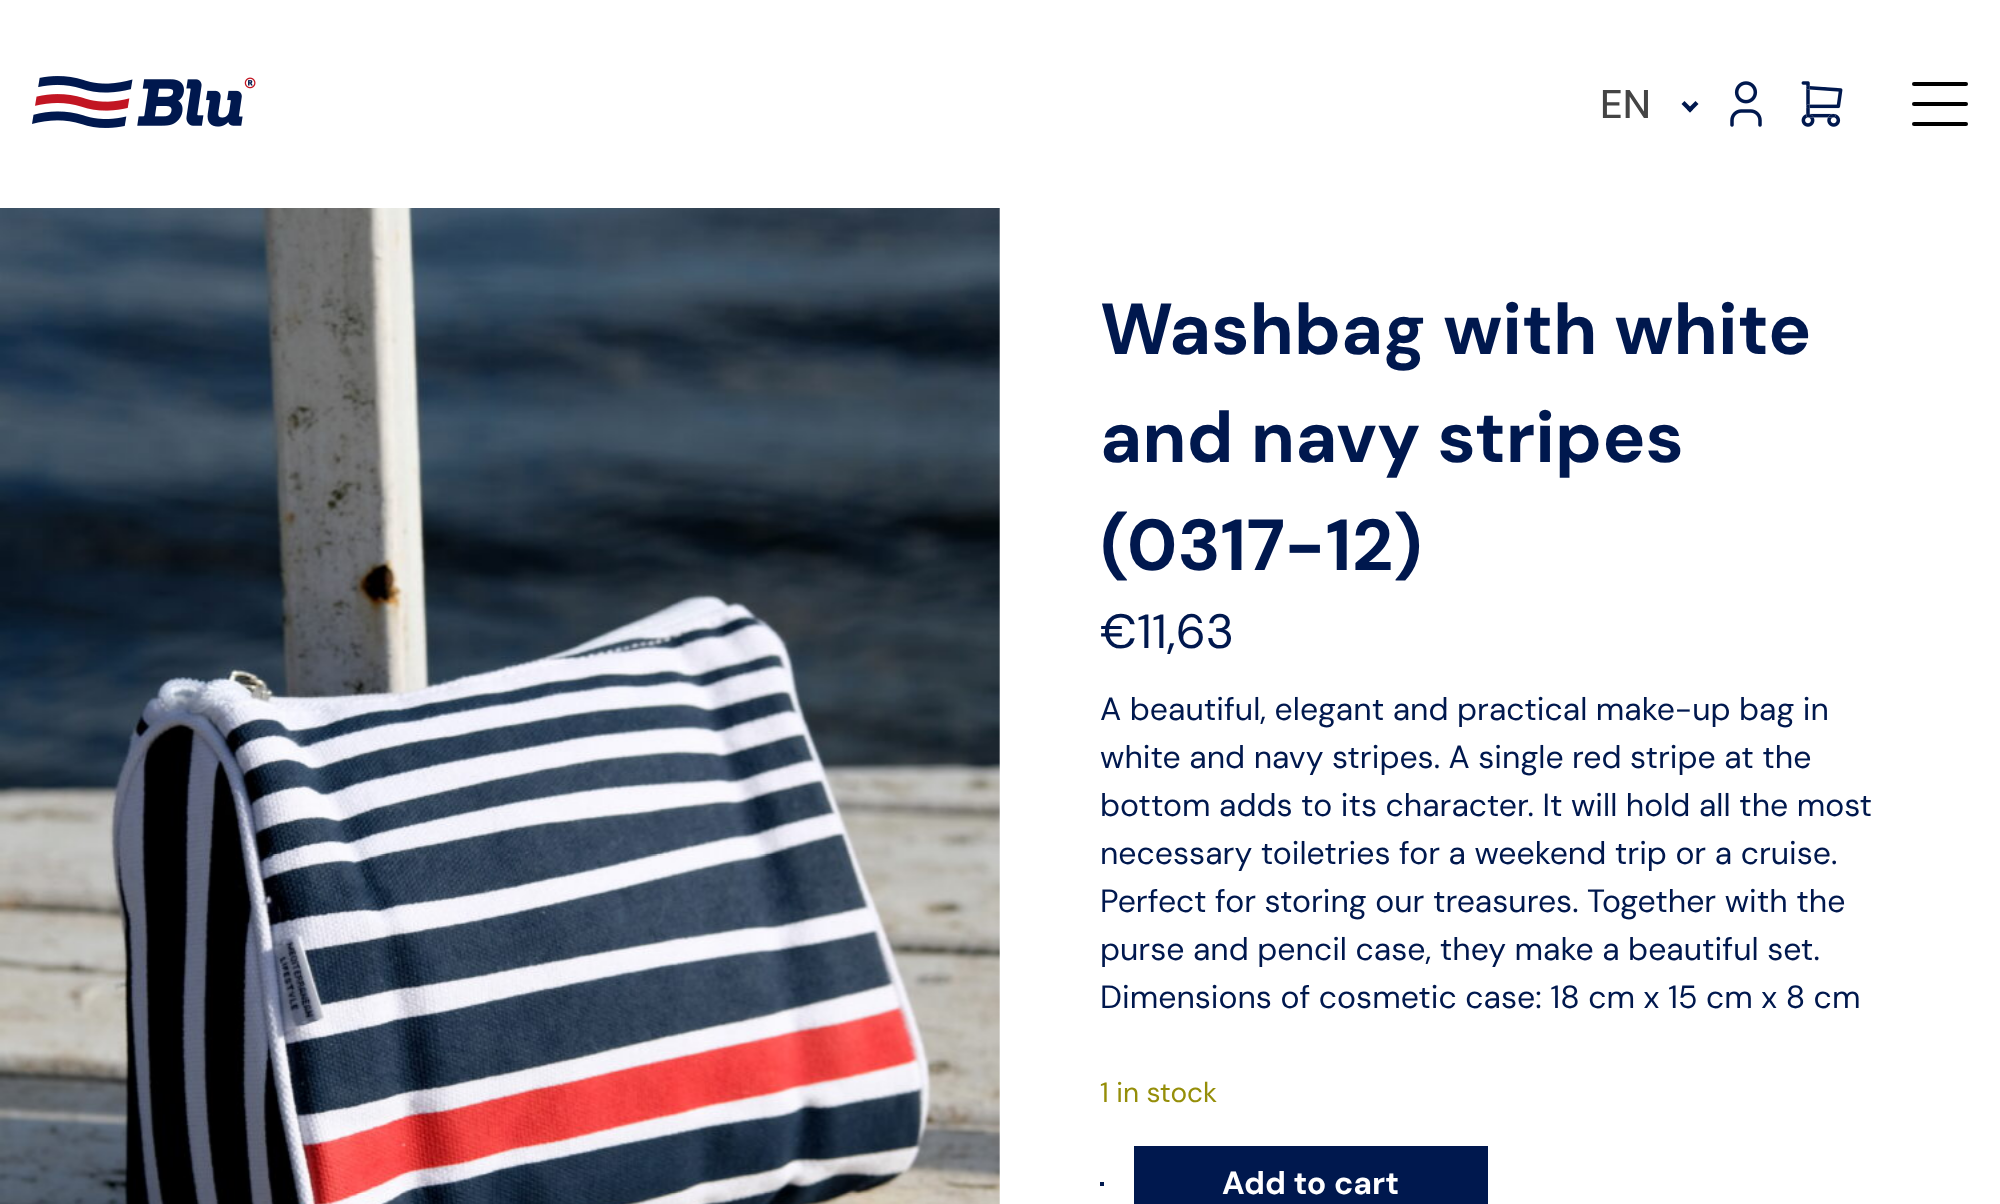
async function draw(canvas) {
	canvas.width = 2000;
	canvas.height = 1204;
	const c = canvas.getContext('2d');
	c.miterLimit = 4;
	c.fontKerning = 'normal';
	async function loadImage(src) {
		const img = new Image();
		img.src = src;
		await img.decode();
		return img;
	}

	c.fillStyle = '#fff';
	c.fillRect(0, 0, 2000, 1204);
	c.drawImage(await loadImage('img1.png'), 32, 76, 224, 52);
	c.font = '500 40px DM Sans';
	c.fillStyle = '#444';
	c.fillText('EN', 1600, 118);
	c.fillStyle = '#00184e';
	c.beginPath();
	c.moveTo(1695.5, 101);
	c.lineTo(1698.5, 104);
	c.lineTo(1690, 112.5);
	c.lineTo(1687, 109.5);
	c.closePath();
	c.fill();
	c.beginPath();
	c.moveTo(1684.5, 101);
	c.lineTo(1693, 109.5);
	c.lineTo(1690, 112.5);
	c.lineTo(1681.5, 104);
	c.closePath();
	c.fill();
	c.drawImage(await loadImage('img2.png'), 1730, 81, 32, 46);
	c.drawImage(await loadImage('img3.png'), 1801, 81, 42, 46);
	c.fillStyle = '#000';
	c.beginPath();
	c.roundRect(1912, 102, 56, 4, 2);
	c.fill();
	c.beginPath();
	c.roundRect(1912, 82, 56, 4, 2);
	c.fill();
	c.beginPath();
	c.roundRect(1912, 122, 56, 4, 2);
	c.fill();
	c.drawImage(await loadImage('img4.png'), 0, 208, 1000, 996);
	c.font = 'bold 72px DM Sans';
	c.fillStyle = '#00184e';
	for (const [text, x, y] of [
		['Washbag with white', 1100, 354],
		['and navy stripes', 1100, 462],
		['(0317-12)', 1100, 570],
	]) {
		c.fillText(text, x, y);
	}
	c.font = '48px DM Sans';
	c.fillText('€11,63', 1100, 648);
	c.font = '32px DM Sans';
	for (const [text, x, y] of [
		['A beautiful, elegant and practical make-up bag in', 1100, 720],
		['white and navy stripes. A single red stripe at the', 1100, 768],
		['bottom adds to its character. It will hold all the most', 1100, 816],
		['necessary toiletries for a weekend trip or a cruise.', 1100, 864],
		['Perfect for storing our treasures. Together with the', 1100, 912],
		['purse and pencil case, they make a beautiful set.', 1100, 960],
		['Dimensions of cosmetic case: 18 cm x 15 cm x 8 cm', 1100, 1008],
	]) {
		c.fillText(text, x, y);
	}
	c.font = '28px DM Sans';
	c.fillStyle = '#958e09';
	c.fillText('1 in stock', 1100, 1102);
	c.fillStyle = '#00184e';
	c.fillRect(1100, 1182, 4, 4);
	c.fillRect(1134, 1146, 354, 58);
	c.font = 'bold 32px DM Sans';
	c.fillStyle = '#fff';
	c.fillText('Add to cart', 1222, 1194);
}

draw(document.querySelector('canvas'));
